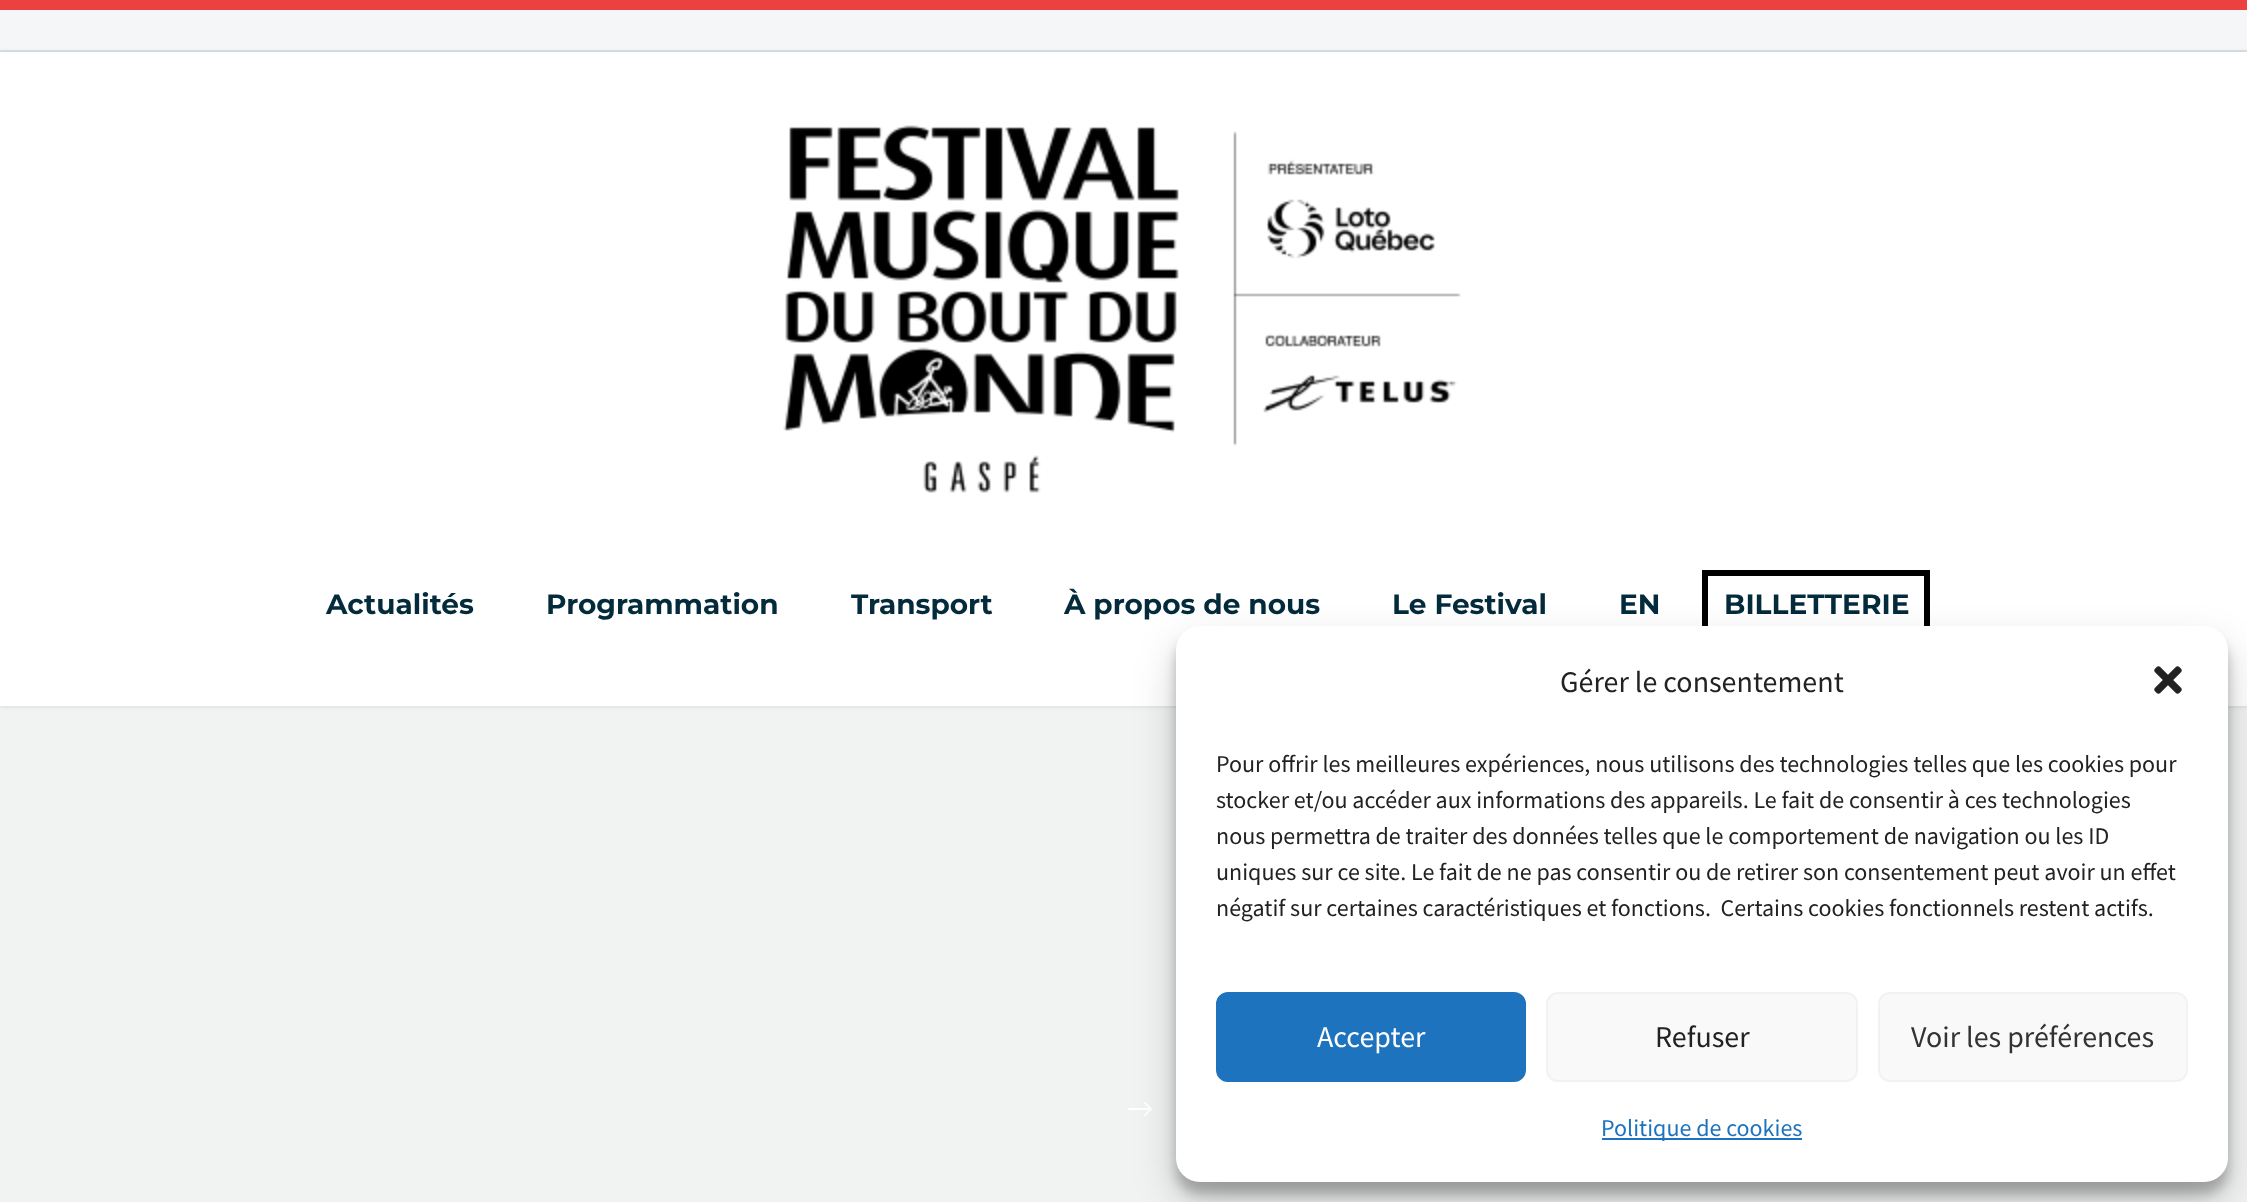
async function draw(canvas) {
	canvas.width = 2247;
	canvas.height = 1202;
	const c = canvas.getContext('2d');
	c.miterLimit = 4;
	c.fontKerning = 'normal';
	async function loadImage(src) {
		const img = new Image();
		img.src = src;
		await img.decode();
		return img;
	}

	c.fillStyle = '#f0f3f2';
	c.fillRect(0, 0, 2247, 1202);
	for (const [x, y, w, h, color] of [
		[0, 0, 2247, 10, '#ec4041'],
		[0, 50, 2247, 2, '#dfe5e8'],
		[0, 10, 2247, 40, '#f4f6f7'],
		[0, 52, 2247, 654, '#fff'],
	]) {
		c.fillStyle = color;
		c.fillRect(x, y, w, h);
	}
	c.save();
	c.beginPath();
	c.moveTo(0, 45);
	c.lineTo(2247, 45);
	c.lineTo(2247, 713);
	c.lineTo(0, 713);
	c.closePath();
	c.moveTo(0, 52);
	c.lineTo(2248, 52);
	c.lineTo(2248, 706);
	c.lineTo(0, 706);
	c.closePath();
	c.clip('evenodd');
	c.fillStyle = '#38455433';
	c.filter = 'blur(2px)';
	c.beginPath();
	c.rect(0, 52, 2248, 654);
	c.fill();
	c.filter = 'none';
	c.restore();
	c.drawImage(await loadImage('img1.png'), 783, 125, 678, 368);
	c.font = 'bold 28px Montserrat';
	c.fillStyle = '#042b3c';
	for (const [text, x, y] of [
		['Actualités', 326, 614],
		['Programmation', 546, 614],
		['Transport', 851, 614],
		['À propos de nous', 1064, 614],
		['Le Festival', 1392, 614],
		['EN', 1619, 614],
	]) {
		c.fillText(text, x, y);
	}
	c.strokeStyle = '#000';
	c.lineWidth = 6;
	c.strokeRect(1705, 573, 222, 64);
	c.fillText('BILLETTERIE', 1724, 614);
	c.drawImage(await loadImage('img2.png'), 1128, 1102, 24, 14);
	c.fillStyle = '#0000003b';
	c.filter = 'blur(6px)';
	c.beginPath();
	c.roundRect(1176, 638, 1052, 556, 24);
	c.fill();
	c.filter = 'none';
	c.fillStyle = '#00000030';
	c.filter = 'blur(20px)';
	c.beginPath();
	c.roundRect(1176, 646, 1052, 556, 24);
	c.fill();
	c.filter = 'none';
	c.fillStyle = '#fff';
	c.beginPath();
	c.roundRect(1176, 626, 1052, 556, 24);
	c.fill();
	c.font = '30px Source Sans Pro';
	c.fillStyle = '#222';
	c.fillText('Gérer le consentement', 1560, 692);
	c.drawImage(await loadImage('img3.png'), 2154, 666, 28, 28);
	c.font = '24px Source Sans Pro';
	for (const [text, x, y] of [
		['Pour offrir les meilleures expériences, nous utilisons des technologies telles que les cookies pour', 1216, 772],
		['stocker et/ou accéder aux informations des appareils. Le fait de consentir à ces technologies', 1216, 808],
		['nous permettra de traiter des données telles que le comportement de navigation ou les ID', 1216, 844],
		['uniques sur ce site. Le fait de ne pas consentir ou de retirer son consentement peut avoir un effet', 1216, 880],
		['négatif sur certaines caractéristiques et fonctions.  Certains cookies fonctionnels restent actifs.', 1216, 916],
	]) {
		c.fillText(text, x, y);
	}
	c.fillStyle = '#1e73be';
	c.beginPath();
	c.roundRect(1217, 993, 308, 88, 11);
	c.fill();
	c.strokeStyle = '#1e73be';
	c.lineWidth = 2;
	c.stroke();
	c.font = '30px Source Sans Pro';
	c.fillStyle = '#fff';
	c.fillText('Accepter', 1317, 1047);
	c.fillStyle = '#f9f9f9';
	c.beginPath();
	c.roundRect(1547, 993, 310, 88, 11);
	c.fill();
	c.strokeStyle = '#f2f2f2';
	c.stroke();
	c.fillStyle = '#222';
	c.fillText('Refuser', 1655, 1047);
	c.fillStyle = '#f9f9f9';
	c.beginPath();
	c.roundRect(1879, 993, 308, 88, 11);
	c.fill();
	c.stroke();
	c.fillStyle = '#333';
	c.fillText('Voir les préférences', 1911, 1047);
	c.fillStyle = '#1e73be';
	c.fillRect(1602, 1138, 200, 2);
	c.font = '24px Source Sans Pro';
	c.fillText('Politique de cookies', 1601, 1136);
}

draw(document.querySelector('canvas'));
